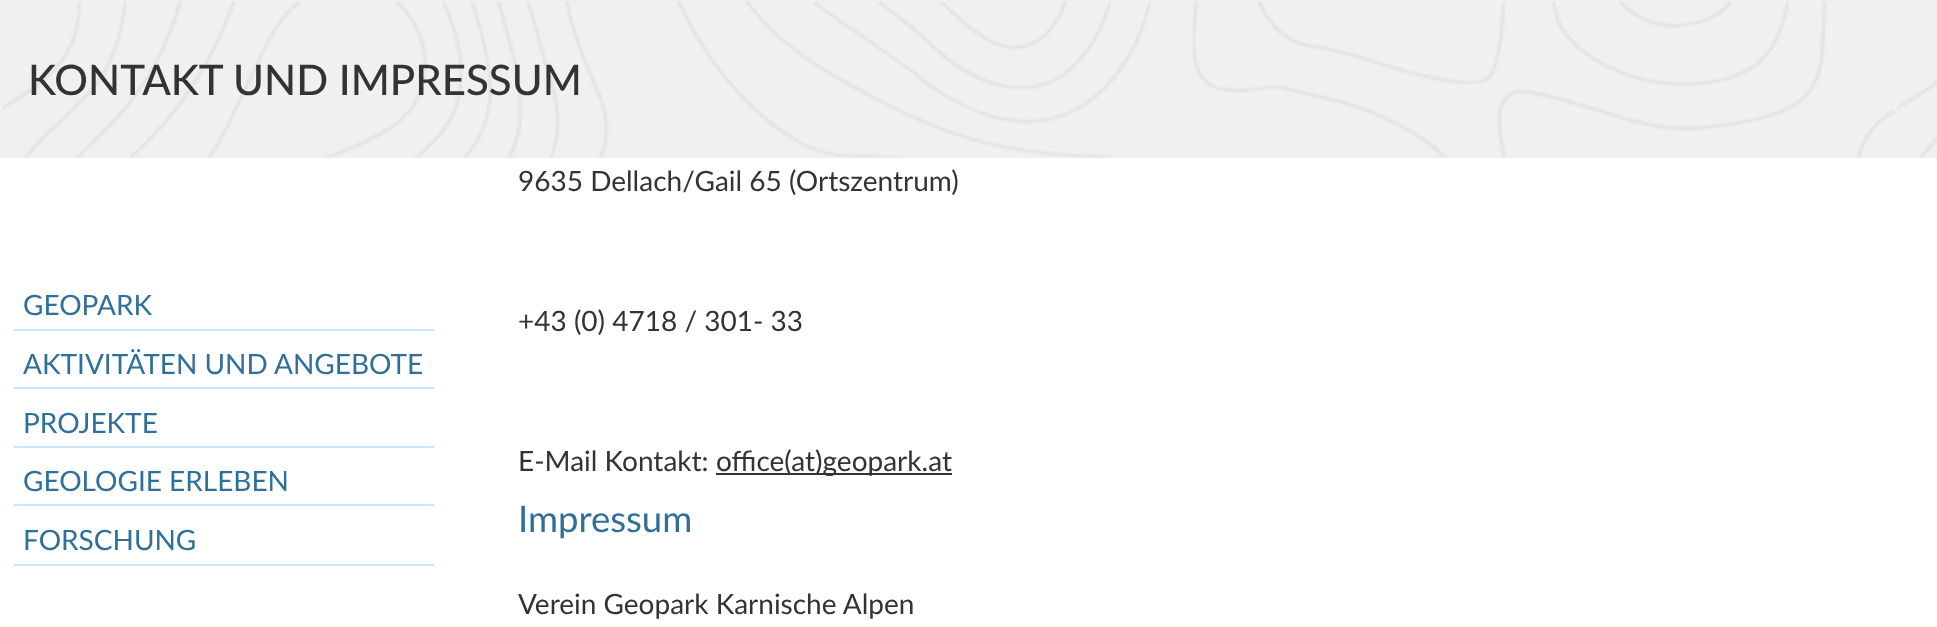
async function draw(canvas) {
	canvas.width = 1937;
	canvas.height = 627;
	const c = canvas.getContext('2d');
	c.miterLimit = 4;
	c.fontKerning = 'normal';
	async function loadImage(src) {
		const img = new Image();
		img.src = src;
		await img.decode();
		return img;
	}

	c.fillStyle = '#fff';
	c.fillRect(0, 0, 1937, 627);
	c.fillStyle = '#f0f0f0';
	c.fillRect(0, 0, 1937, 158);
	c.drawImage(await loadImage('img1.png'), 2, 1, 1935, 157);
	c.font = '500 42px Lato';
	c.fillStyle = '#333';
	c.fillText('KONTAKT UND IMPRESSUM', 28, 95);
	c.fillStyle = '#c8e7fb';
	c.fillRect(14, 329, 420, 2);
	c.font = '28px Lato';
	c.fillStyle = '#2e7099';
	c.fillText('GEOPARK', 23, 315);
	c.fillStyle = '#c8e7fb';
	c.fillRect(14, 387, 420, 2);
	c.fillStyle = '#2e7099';
	c.fillText('AKTIVITÄTEN UND ANGEBOTE', 23, 374);
	c.fillStyle = '#c8e7fb';
	c.fillRect(14, 446, 420, 2);
	c.fillStyle = '#2e7099';
	c.fillText('PROJEKTE', 23, 433);
	c.fillStyle = '#c8e7fb';
	c.fillRect(14, 504, 420, 2);
	c.fillStyle = '#2e7099';
	c.fillText('GEOLOGIE ERLEBEN', 23, 491);
	c.fillStyle = '#c8e7fb';
	c.fillRect(14, 564, 420, 2);
	c.fillStyle = '#2e7099';
	c.fillText('FORSCHUNG', 23, 550);
	c.fillStyle = '#333';
	for (const [text, x, y] of [
		['9635 Dellach/Gail 65 (Ortszentrum)', 518, 191],
		['+43 (0) 4718 / 301- 33', 518, 331],
		['E-Mail Kontakt:', 518, 471],
	]) {
		c.fillText(text, x, y);
	}
	c.fillRect(716, 473, 236, 2);
	c.fillText('office(at)geopark.at', 716, 471);
	c.font = '36.5px Lato';
	c.fillStyle = '#2e7099';
	c.fillText('Impressum', 518, 532);
	c.font = '28px Lato';
	c.fillStyle = '#333';
	c.fillText('Verein Geopark Karnische Alpen', 518, 614);
}

draw(document.querySelector('canvas'));
